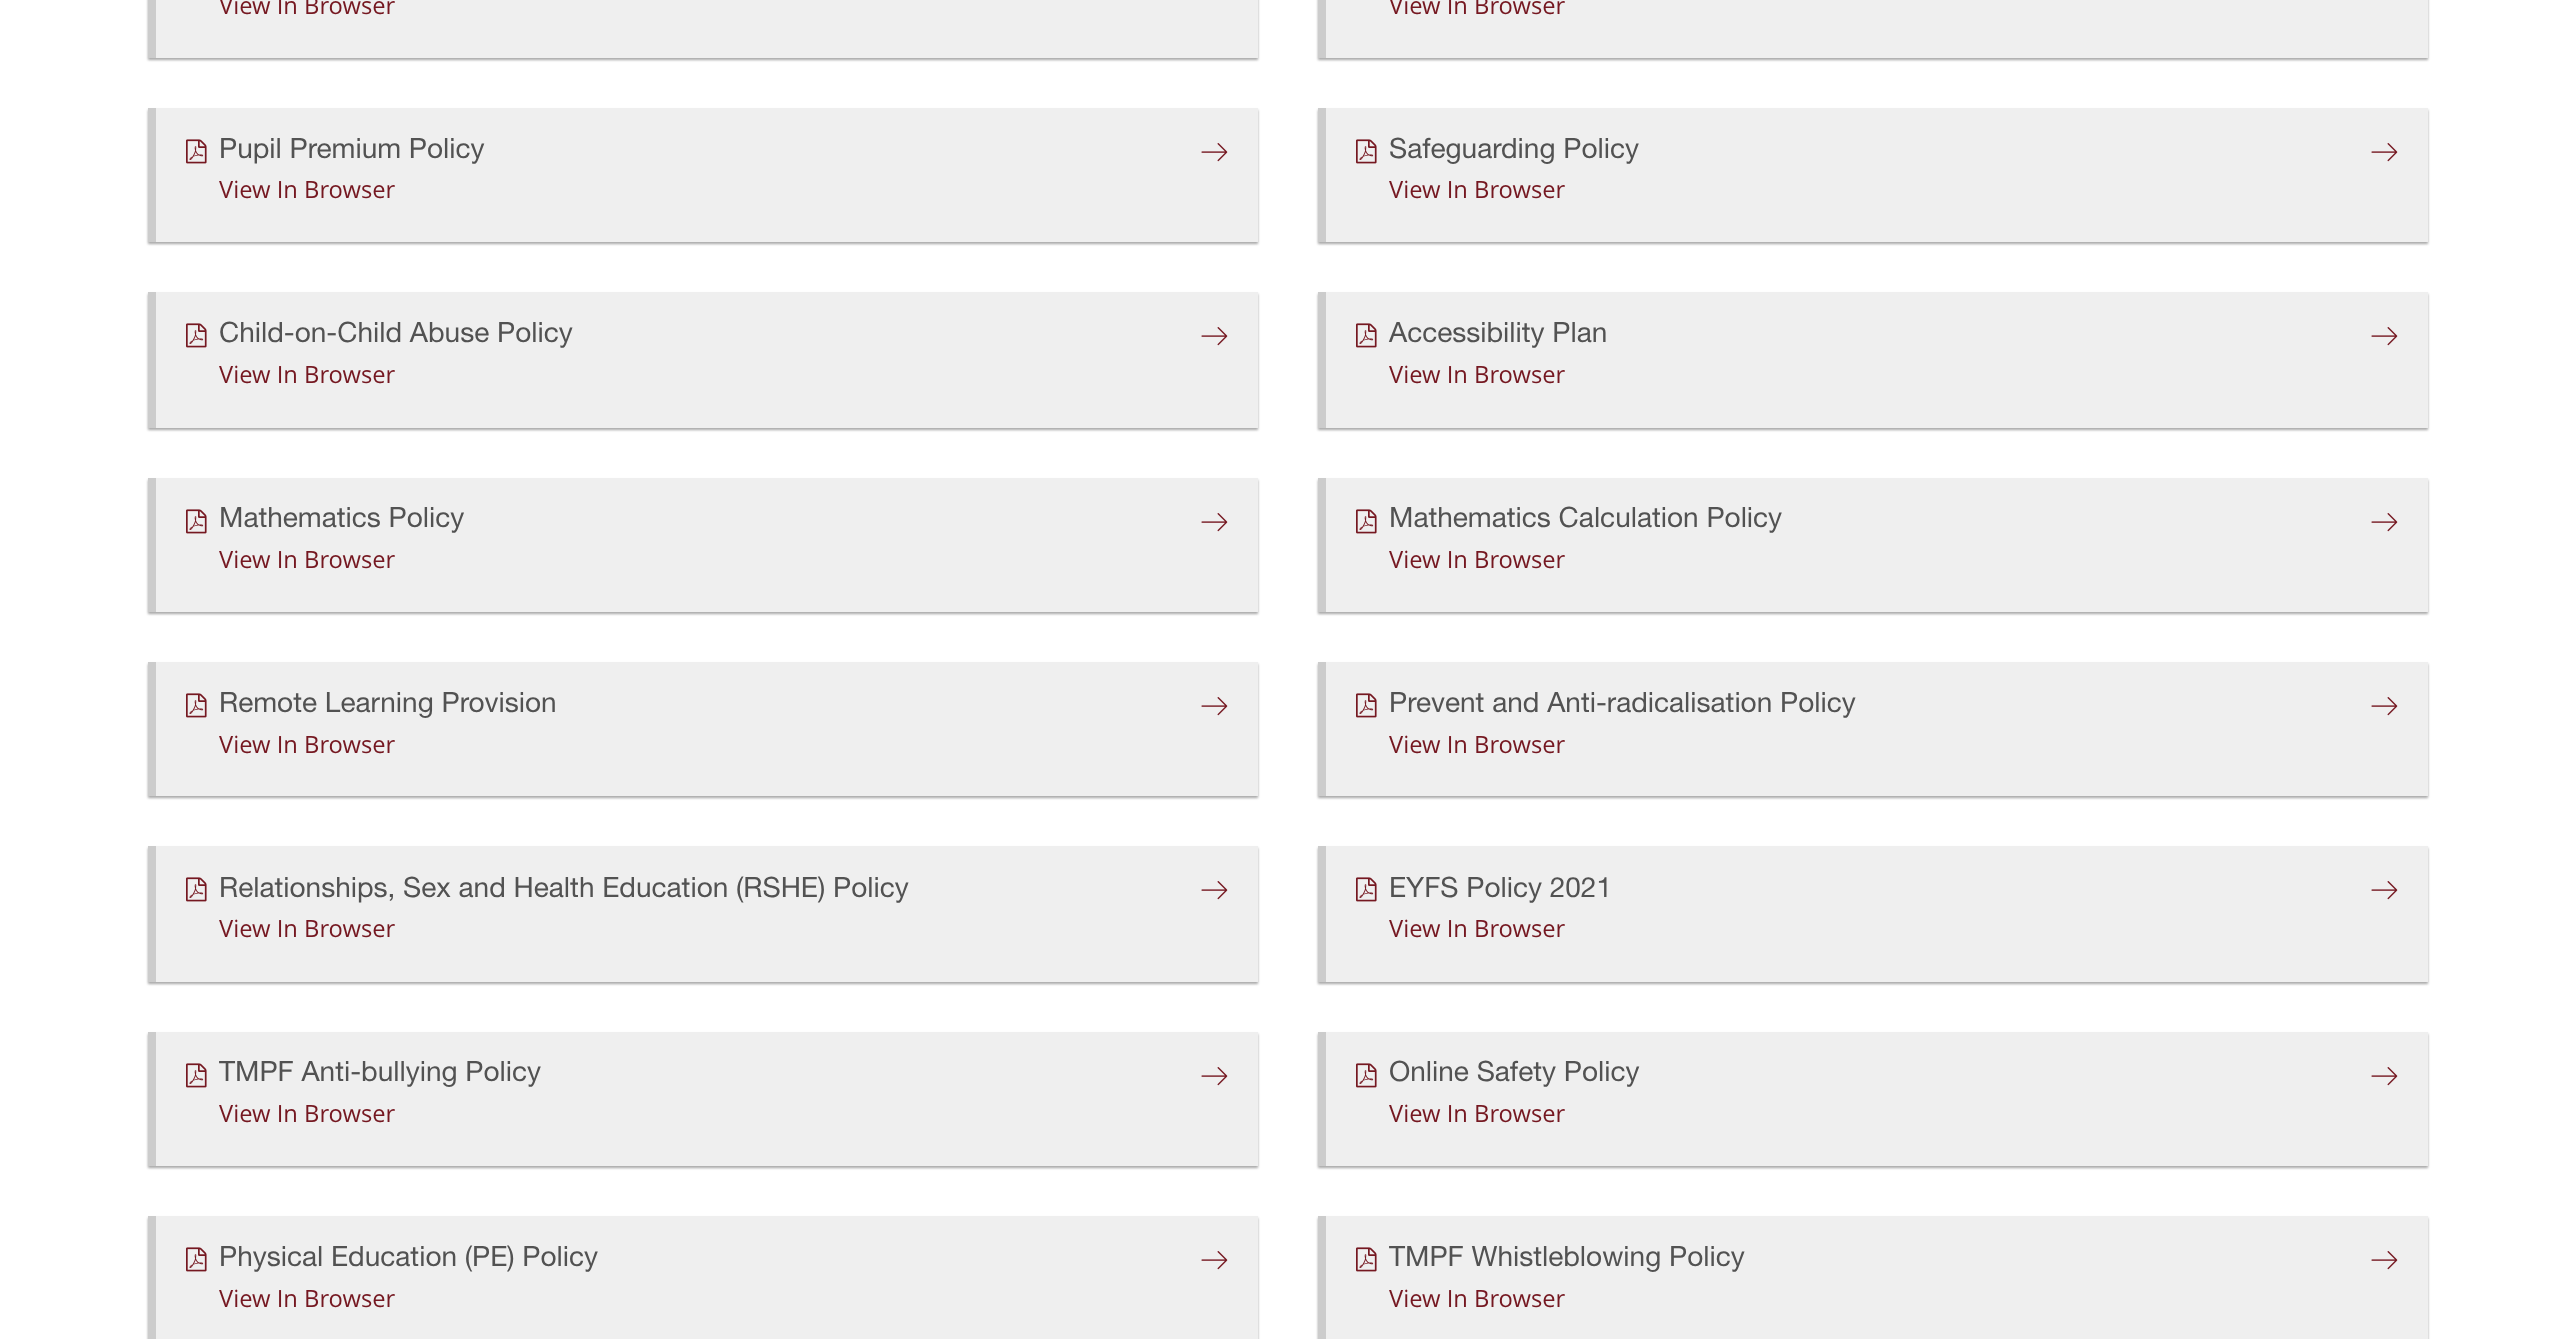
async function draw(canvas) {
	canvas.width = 2576;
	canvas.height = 1339;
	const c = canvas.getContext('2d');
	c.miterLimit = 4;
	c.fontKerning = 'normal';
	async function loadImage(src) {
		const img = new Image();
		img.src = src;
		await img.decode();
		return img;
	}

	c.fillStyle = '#fff';
	c.fillRect(0, 0, 2576, 1339);
	c.fillStyle = '#0000003d';
	c.filter = 'blur(1px)';
	c.beginPath();
	c.rect(148, -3, 1110, 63);
	c.fill();
	c.filter = 'none';
	c.fillStyle = '#0000001f';
	c.filter = 'blur(1.5px)';
	c.beginPath();
	c.rect(148, -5, 1110, 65);
	c.fill();
	c.filter = 'none';
	c.fillStyle = '#efefef';
	c.fillRect(156, 0, 1102, 58);
	c.fillStyle = '#ccc';
	c.fillRect(148, 0, 8, 58);
	c.font = '23.75px Open Sans';
	c.fillStyle = '#751821';
	c.fillText('View In Browser', 219, 14);
	c.fillStyle = '#0000003d';
	c.filter = 'blur(1px)';
	c.beginPath();
	c.rect(1318, -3, 1110, 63);
	c.fill();
	c.filter = 'none';
	c.fillStyle = '#0000001f';
	c.filter = 'blur(1.5px)';
	c.beginPath();
	c.rect(1318, -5, 1110, 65);
	c.fill();
	c.filter = 'none';
	c.fillStyle = '#efefef';
	c.fillRect(1326, 0, 1102, 58);
	c.fillStyle = '#ccc';
	c.fillRect(1318, 0, 8, 58);
	c.fillStyle = '#751821';
	c.fillText('View In Browser', 1389, 14);
	c.fillStyle = '#0000003d';
	c.filter = 'blur(1px)';
	c.beginPath();
	c.rect(148, 110, 1110, 134);
	c.fill();
	c.filter = 'none';
	c.fillStyle = '#0000001f';
	c.filter = 'blur(1.5px)';
	c.beginPath();
	c.rect(148, 110, 1110, 134);
	c.fill();
	c.filter = 'none';
	c.fillStyle = '#efefef';
	c.fillRect(156, 108, 1102, 134);
	c.fillStyle = '#ccc';
	c.fillRect(148, 108, 8, 134);
	c.drawImage(await loadImage('img1.png'), 186, 139, 21, 25);
	c.font = '28px Helvetica Neue';
	c.fillStyle = '#525252';
	c.fillText('Pupil Premium Policy', 219, 158);
	c.drawImage(await loadImage('img2.png'), 1201, 143, 27, 19);
	c.font = '23.75px Open Sans';
	c.fillStyle = '#751821';
	c.fillText('View In Browser', 219, 198);
	c.fillStyle = '#0000003d';
	c.filter = 'blur(1px)';
	c.beginPath();
	c.rect(1318, 110, 1110, 134);
	c.fill();
	c.filter = 'none';
	c.fillStyle = '#0000001f';
	c.filter = 'blur(1.5px)';
	c.beginPath();
	c.rect(1318, 110, 1110, 134);
	c.fill();
	c.filter = 'none';
	c.fillStyle = '#efefef';
	c.fillRect(1326, 108, 1102, 134);
	c.fillStyle = '#ccc';
	c.fillRect(1318, 108, 8, 134);
	c.drawImage(await loadImage('img1.png'), 1356, 139, 21, 25);
	c.font = '28px Helvetica Neue';
	c.fillStyle = '#525252';
	c.fillText('Safeguarding Policy', 1389, 158);
	c.drawImage(await loadImage('img2.png'), 2371, 143, 27, 19);
	c.font = '23.75px Open Sans';
	c.fillStyle = '#751821';
	c.fillText('View In Browser', 1389, 198);
	c.fillStyle = '#0000003d';
	c.filter = 'blur(1px)';
	c.beginPath();
	c.rect(148, 294, 1110, 136);
	c.fill();
	c.filter = 'none';
	c.fillStyle = '#0000001f';
	c.filter = 'blur(1.5px)';
	c.beginPath();
	c.rect(148, 294, 1110, 136);
	c.fill();
	c.filter = 'none';
	c.fillStyle = '#efefef';
	c.fillRect(156, 292, 1102, 136);
	c.fillStyle = '#ccc';
	c.fillRect(148, 292, 8, 136);
	c.drawImage(await loadImage('img1.png'), 186, 323, 21, 25);
	c.font = '28px Helvetica Neue';
	c.fillStyle = '#525252';
	c.fillText('Child-on-Child Abuse Policy', 219, 342);
	c.drawImage(await loadImage('img2.png'), 1201, 327, 27, 19);
	c.font = '23.75px Open Sans';
	c.fillStyle = '#751821';
	c.fillText('View In Browser', 219, 383);
	c.fillStyle = '#0000003d';
	c.filter = 'blur(1px)';
	c.beginPath();
	c.rect(1318, 294, 1110, 136);
	c.fill();
	c.filter = 'none';
	c.fillStyle = '#0000001f';
	c.filter = 'blur(1.5px)';
	c.beginPath();
	c.rect(1318, 294, 1110, 136);
	c.fill();
	c.filter = 'none';
	c.fillStyle = '#efefef';
	c.fillRect(1326, 292, 1102, 136);
	c.fillStyle = '#ccc';
	c.fillRect(1318, 292, 8, 136);
	c.drawImage(await loadImage('img1.png'), 1356, 323, 21, 25);
	c.font = '28px Helvetica Neue';
	c.fillStyle = '#525252';
	c.fillText('Accessibility Plan', 1389, 342);
	c.drawImage(await loadImage('img2.png'), 2371, 327, 27, 19);
	c.font = '23.75px Open Sans';
	c.fillStyle = '#751821';
	c.fillText('View In Browser', 1389, 383);
	c.fillStyle = '#0000003d';
	c.filter = 'blur(1px)';
	c.beginPath();
	c.rect(148, 480, 1110, 134);
	c.fill();
	c.filter = 'none';
	c.fillStyle = '#0000001f';
	c.filter = 'blur(1.5px)';
	c.beginPath();
	c.rect(148, 480, 1110, 134);
	c.fill();
	c.filter = 'none';
	c.fillStyle = '#efefef';
	c.fillRect(156, 478, 1102, 134);
	c.fillStyle = '#ccc';
	c.fillRect(148, 478, 8, 134);
	c.drawImage(await loadImage('img1.png'), 186, 509, 21, 25);
	c.font = '28px Helvetica Neue';
	c.fillStyle = '#525252';
	c.fillText('Mathematics Policy', 219, 527);
	c.drawImage(await loadImage('img2.png'), 1201, 513, 27, 19);
	c.font = '23.75px Open Sans';
	c.fillStyle = '#751821';
	c.fillText('View In Browser', 219, 568);
	c.fillStyle = '#0000003d';
	c.filter = 'blur(1px)';
	c.beginPath();
	c.rect(1318, 480, 1110, 134);
	c.fill();
	c.filter = 'none';
	c.fillStyle = '#0000001f';
	c.filter = 'blur(1.5px)';
	c.beginPath();
	c.rect(1318, 480, 1110, 134);
	c.fill();
	c.filter = 'none';
	c.fillStyle = '#efefef';
	c.fillRect(1326, 478, 1102, 134);
	c.fillStyle = '#ccc';
	c.fillRect(1318, 478, 8, 134);
	c.drawImage(await loadImage('img1.png'), 1356, 509, 21, 25);
	c.font = '28px Helvetica Neue';
	c.fillStyle = '#525252';
	c.fillText('Mathematics Calculation Policy', 1389, 527);
	c.drawImage(await loadImage('img2.png'), 2371, 513, 27, 19);
	c.font = '23.75px Open Sans';
	c.fillStyle = '#751821';
	c.fillText('View In Browser', 1389, 568);
	c.fillStyle = '#0000003d';
	c.filter = 'blur(1px)';
	c.beginPath();
	c.rect(148, 664, 1110, 134);
	c.fill();
	c.filter = 'none';
	c.fillStyle = '#0000001f';
	c.filter = 'blur(1.5px)';
	c.beginPath();
	c.rect(148, 664, 1110, 134);
	c.fill();
	c.filter = 'none';
	c.fillStyle = '#efefef';
	c.fillRect(156, 662, 1102, 134);
	c.fillStyle = '#ccc';
	c.fillRect(148, 662, 8, 134);
	c.drawImage(await loadImage('img1.png'), 186, 693, 21, 25);
	c.font = '28px Helvetica Neue';
	c.fillStyle = '#525252';
	c.fillText('Remote Learning Provision', 219, 712);
	c.drawImage(await loadImage('img2.png'), 1201, 697, 27, 19);
	c.font = '23.75px Open Sans';
	c.fillStyle = '#751821';
	c.fillText('View In Browser', 219, 753);
	c.fillStyle = '#0000003d';
	c.filter = 'blur(1px)';
	c.beginPath();
	c.rect(1318, 664, 1110, 134);
	c.fill();
	c.filter = 'none';
	c.fillStyle = '#0000001f';
	c.filter = 'blur(1.5px)';
	c.beginPath();
	c.rect(1318, 664, 1110, 134);
	c.fill();
	c.filter = 'none';
	c.fillStyle = '#efefef';
	c.fillRect(1326, 662, 1102, 134);
	c.fillStyle = '#ccc';
	c.fillRect(1318, 662, 8, 134);
	c.drawImage(await loadImage('img1.png'), 1356, 693, 21, 25);
	c.font = '28px Helvetica Neue';
	c.fillStyle = '#525252';
	c.fillText('Prevent and Anti-radicalisation Policy', 1389, 712);
	c.drawImage(await loadImage('img2.png'), 2371, 697, 27, 19);
	c.font = '23.75px Open Sans';
	c.fillStyle = '#751821';
	c.fillText('View In Browser', 1389, 753);
	c.fillStyle = '#0000003d';
	c.filter = 'blur(1px)';
	c.beginPath();
	c.rect(148, 848, 1110, 136);
	c.fill();
	c.filter = 'none';
	c.fillStyle = '#0000001f';
	c.filter = 'blur(1.5px)';
	c.beginPath();
	c.rect(148, 848, 1110, 136);
	c.fill();
	c.filter = 'none';
	c.fillStyle = '#efefef';
	c.fillRect(156, 846, 1102, 136);
	c.fillStyle = '#ccc';
	c.fillRect(148, 846, 8, 136);
	c.drawImage(await loadImage('img1.png'), 186, 877, 21, 25);
	c.font = '28px Helvetica Neue';
	c.fillStyle = '#525252';
	c.fillText('Relationships, Sex and Health Education (RSHE) Policy', 219, 897);
	c.drawImage(await loadImage('img2.png'), 1201, 881, 27, 19);
	c.font = '23.75px Open Sans';
	c.fillStyle = '#751821';
	c.fillText('View In Browser', 219, 937);
	c.fillStyle = '#0000003d';
	c.filter = 'blur(1px)';
	c.beginPath();
	c.rect(1318, 848, 1110, 136);
	c.fill();
	c.filter = 'none';
	c.fillStyle = '#0000001f';
	c.filter = 'blur(1.5px)';
	c.beginPath();
	c.rect(1318, 848, 1110, 136);
	c.fill();
	c.filter = 'none';
	c.fillStyle = '#efefef';
	c.fillRect(1326, 846, 1102, 136);
	c.fillStyle = '#ccc';
	c.fillRect(1318, 846, 8, 136);
	c.drawImage(await loadImage('img1.png'), 1356, 877, 21, 25);
	c.font = '28px Helvetica Neue';
	c.fillStyle = '#525252';
	c.fillText('EYFS Policy 2021', 1389, 897);
	c.drawImage(await loadImage('img2.png'), 2371, 881, 27, 19);
	c.font = '23.75px Open Sans';
	c.fillStyle = '#751821';
	c.fillText('View In Browser', 1389, 937);
	c.fillStyle = '#0000003d';
	c.filter = 'blur(1px)';
	c.beginPath();
	c.rect(148, 1034, 1110, 134);
	c.fill();
	c.filter = 'none';
	c.fillStyle = '#0000001f';
	c.filter = 'blur(1.5px)';
	c.beginPath();
	c.rect(148, 1034, 1110, 134);
	c.fill();
	c.filter = 'none';
	c.fillStyle = '#efefef';
	c.fillRect(156, 1032, 1102, 134);
	c.fillStyle = '#ccc';
	c.fillRect(148, 1032, 8, 134);
	c.drawImage(await loadImage('img1.png'), 186, 1063, 21, 25);
	c.font = '28px Helvetica Neue';
	c.fillStyle = '#525252';
	c.fillText('TMPF Anti-bullying Policy', 219, 1081);
	c.drawImage(await loadImage('img2.png'), 1201, 1067, 27, 19);
	c.font = '23.75px Open Sans';
	c.fillStyle = '#751821';
	c.fillText('View In Browser', 219, 1122);
	c.fillStyle = '#0000003d';
	c.filter = 'blur(1px)';
	c.beginPath();
	c.rect(1318, 1034, 1110, 134);
	c.fill();
	c.filter = 'none';
	c.fillStyle = '#0000001f';
	c.filter = 'blur(1.5px)';
	c.beginPath();
	c.rect(1318, 1034, 1110, 134);
	c.fill();
	c.filter = 'none';
	c.fillStyle = '#efefef';
	c.fillRect(1326, 1032, 1102, 134);
	c.fillStyle = '#ccc';
	c.fillRect(1318, 1032, 8, 134);
	c.drawImage(await loadImage('img1.png'), 1356, 1063, 21, 25);
	c.font = '28px Helvetica Neue';
	c.fillStyle = '#525252';
	c.fillText('Online Safety Policy', 1389, 1081);
	c.drawImage(await loadImage('img2.png'), 2371, 1067, 27, 19);
	c.font = '23.75px Open Sans';
	c.fillStyle = '#751821';
	c.fillText('View In Browser', 1389, 1122);
	c.fillStyle = '#0000003d';
	c.filter = 'blur(1px)';
	c.beginPath();
	c.rect(148, 1218, 1110, 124);
	c.fill();
	c.filter = 'none';
	c.fillStyle = '#0000001f';
	c.filter = 'blur(1.5px)';
	c.beginPath();
	c.rect(148, 1218, 1110, 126);
	c.fill();
	c.filter = 'none';
	c.fillStyle = '#efefef';
	c.fillRect(156, 1216, 1102, 123);
	c.fillStyle = '#ccc';
	c.fillRect(148, 1216, 8, 123);
	c.drawImage(await loadImage('img1.png'), 186, 1247, 21, 25);
	c.font = '28px Helvetica Neue';
	c.fillStyle = '#525252';
	c.fillText('Physical Education (PE) Policy', 219, 1266);
	c.drawImage(await loadImage('img2.png'), 1201, 1251, 27, 19);
	c.font = '23.75px Open Sans';
	c.fillStyle = '#751821';
	c.fillText('View In Browser', 219, 1307);
	c.fillStyle = '#0000003d';
	c.filter = 'blur(1px)';
	c.beginPath();
	c.rect(1318, 1218, 1110, 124);
	c.fill();
	c.filter = 'none';
	c.fillStyle = '#0000001f';
	c.filter = 'blur(1.5px)';
	c.beginPath();
	c.rect(1318, 1218, 1110, 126);
	c.fill();
	c.filter = 'none';
	c.fillStyle = '#efefef';
	c.fillRect(1326, 1216, 1102, 123);
	c.fillStyle = '#ccc';
	c.fillRect(1318, 1216, 8, 123);
	c.drawImage(await loadImage('img1.png'), 1356, 1247, 21, 25);
	c.font = '28px Helvetica Neue';
	c.fillStyle = '#525252';
	c.fillText('TMPF Whistleblowing Policy', 1389, 1266);
	c.drawImage(await loadImage('img2.png'), 2371, 1251, 27, 19);
	c.font = '23.75px Open Sans';
	c.fillStyle = '#751821';
	c.fillText('View In Browser', 1389, 1307);
}

draw(document.querySelector('canvas'));
